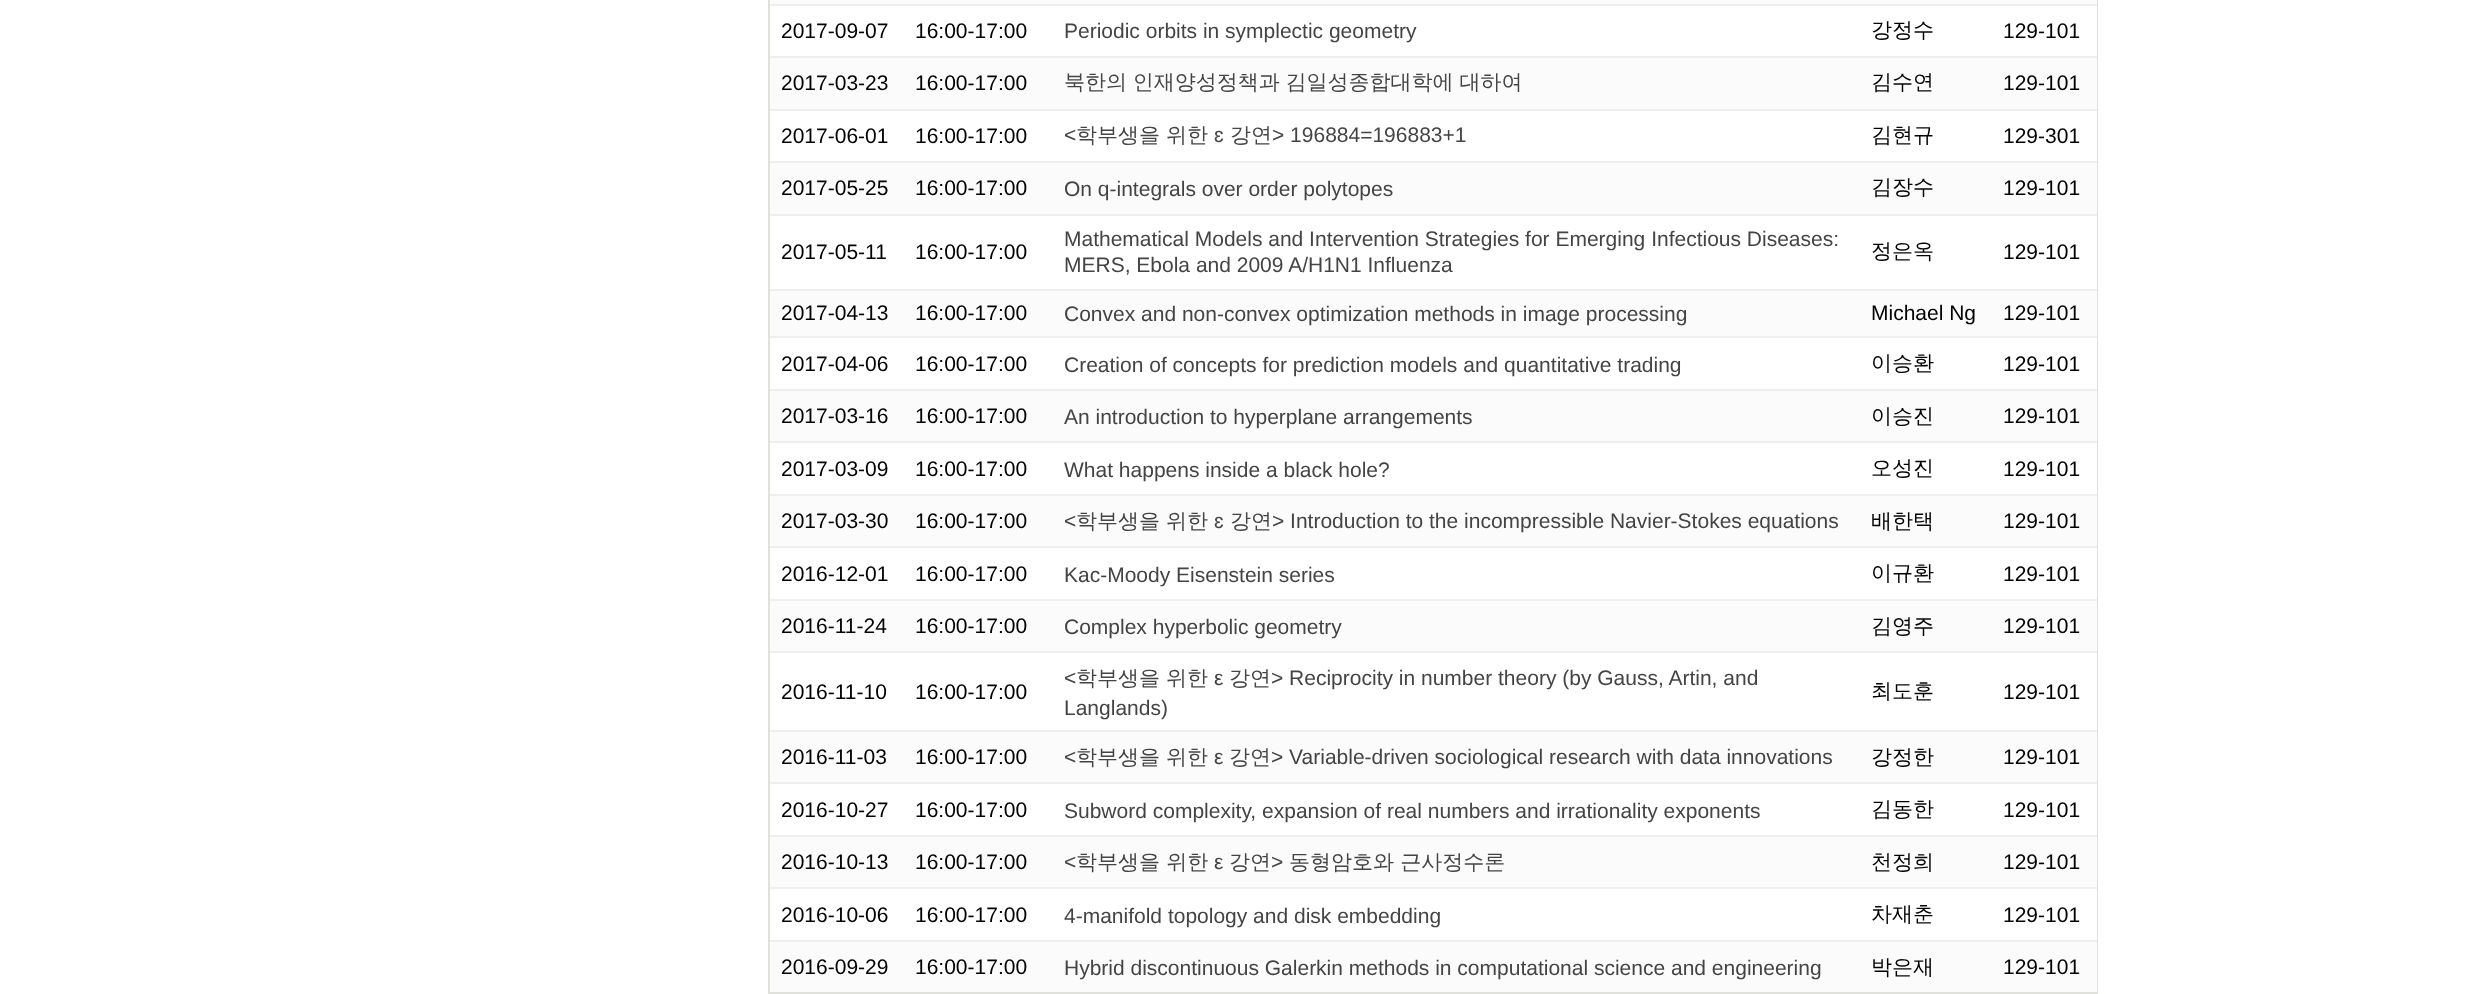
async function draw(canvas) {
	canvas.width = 2481;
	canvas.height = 994;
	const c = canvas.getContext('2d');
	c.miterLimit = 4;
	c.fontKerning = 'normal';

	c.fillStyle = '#fff';
	c.fillRect(0, 0, 2481, 994);
	for (const [x, y, w, h, color] of [
		[2097, 0, 1, 994, '#e0e1db'],
		[768, 992, 1330, 2, '#e0e1db'],
		[768, 0, 2, 994, '#e0e1db'],
		[770, 0, 1327, 4, '#fbfbfb'],
		[770, 4, 1327, 2, '#eff0ed'],
	]) {
		c.fillStyle = color;
		c.fillRect(x, y, w, h);
	}
	c.font = '21px Liberation Sans';
	c.fillStyle = '#000';
	c.fillText('2017-09-07', 781, 38);
	c.fillText('16:00-17:00', 915, 38);
	c.fillStyle = '#444';
	c.fillText('Periodic orbits in symplectic geometry', 1064, 38);
	c.font = '500 21px WenQuanYi Zen Hei';
	c.fillStyle = '#000';
	c.fillText('강정수', 1871, 37);
	c.font = '21px Liberation Sans';
	c.fillText('129-101', 2003, 38);
	c.fillStyle = '#fbfbfb';
	c.fillRect(770, 58, 1327, 51);
	c.fillStyle = '#eff0ed';
	c.fillRect(770, 56, 1327, 2);
	c.fillStyle = '#000';
	c.fillText('2017-03-23', 781, 90);
	c.fillText('16:00-17:00', 915, 90);
	c.wordSpacing = '-0.5px';
	c.font = '500 21px WenQuanYi Zen Hei';
	c.fillStyle = '#444';
	c.fillText('북한의 인재양성정책과 김일성종합대학에 대하여', 1064, 89);
	c.wordSpacing = '0px';
	c.fillStyle = '#000';
	c.fillText('김수연', 1871, 89);
	c.font = '21px Liberation Sans';
	c.fillText('129-101', 2003, 90);
	c.fillStyle = '#eff0ed';
	c.fillRect(770, 109, 1327, 2);
	c.fillStyle = '#000';
	c.fillText('2017-06-01', 781, 143);
	c.fillText('16:00-17:00', 915, 143);
	c.fillStyle = '#444';
	c.fillText('<', 1064, 142);
	c.font = '500 21px WenQuanYi Zen Hei';
	c.fillText('학부생을', 1076, 142);
	c.fillText('위한', 1166, 142);
	c.font = '21px Liberation Sans';
	c.fillText('ɛ', 1214, 142);
	c.font = '500 21px WenQuanYi Zen Hei';
	c.fillText('강연', 1230, 142);
	c.font = '21px Liberation Sans';
	c.fillText('> 196884=196883+1', 1272, 142);
	c.font = '500 21px WenQuanYi Zen Hei';
	c.fillStyle = '#000';
	c.fillText('김현규', 1871, 142);
	c.font = '21px Liberation Sans';
	c.fillText('129-301', 2003, 143);
	c.fillStyle = '#fbfbfb';
	c.fillRect(770, 163, 1327, 51);
	c.fillStyle = '#eff0ed';
	c.fillRect(770, 161, 1327, 2);
	c.fillStyle = '#000';
	c.fillText('2017-05-25', 781, 195);
	c.fillText('16:00-17:00', 915, 195);
	c.fillStyle = '#444';
	c.fillText('On q-integrals over order polytopes', 1064, 196);
	c.font = '500 21px WenQuanYi Zen Hei';
	c.fillStyle = '#000';
	c.fillText('김장수', 1871, 194);
	c.font = '21px Liberation Sans';
	c.fillText('129-101', 2003, 195);
	c.fillStyle = '#eff0ed';
	c.fillRect(770, 214, 1327, 2);
	c.fillStyle = '#000';
	c.fillText('2017-05-11', 781, 259);
	c.fillText('16:00-17:00', 915, 259);
	c.fillStyle = '#444';
	c.fillText('Mathematical Models and Intervention Strategies for Emerging Infectious Diseases:', 1064, 246);
	c.fillText('MERS, Ebola and 2009 A/H1N1 Influenza', 1064, 272);
	c.font = '500 21px WenQuanYi Zen Hei';
	c.fillStyle = '#000';
	c.fillText('정은옥', 1871, 258);
	c.font = '21px Liberation Sans';
	c.fillText('129-101', 2003, 259);
	c.fillStyle = '#fbfbfb';
	c.fillRect(770, 291, 1327, 45);
	c.fillStyle = '#eff0ed';
	c.fillRect(770, 289, 1327, 2);
	c.fillStyle = '#000';
	c.fillText('2017-04-13', 781, 320);
	c.fillText('16:00-17:00', 915, 320);
	c.fillStyle = '#444';
	c.fillText('Convex and non-convex optimization methods in image processing', 1064, 321);
	c.fillStyle = '#000';
	c.fillText('Michael Ng', 1871, 320);
	c.fillText('129-101', 2003, 320);
	c.fillStyle = '#eff0ed';
	c.fillRect(770, 336, 1327, 2);
	c.fillStyle = '#000';
	c.fillText('2017-04-06', 781, 371);
	c.fillText('16:00-17:00', 915, 371);
	c.fillStyle = '#444';
	c.fillText('Creation of concepts for prediction models and quantitative trading', 1064, 372);
	c.font = '500 21px WenQuanYi Zen Hei';
	c.fillStyle = '#000';
	c.fillText('이승환', 1871, 370);
	c.font = '21px Liberation Sans';
	c.fillText('129-101', 2003, 371);
	c.fillStyle = '#fbfbfb';
	c.fillRect(770, 391, 1327, 50);
	c.fillStyle = '#eff0ed';
	c.fillRect(770, 389, 1327, 2);
	c.fillStyle = '#000';
	c.fillText('2017-03-16', 781, 423);
	c.fillText('16:00-17:00', 915, 423);
	c.fillStyle = '#444';
	c.fillText('An introduction to hyperplane arrangements', 1064, 424);
	c.font = '500 21px WenQuanYi Zen Hei';
	c.fillStyle = '#000';
	c.fillText('이승진', 1871, 423);
	c.font = '21px Liberation Sans';
	c.fillText('129-101', 2003, 423);
	c.fillStyle = '#eff0ed';
	c.fillRect(770, 441, 1327, 2);
	c.fillStyle = '#000';
	c.fillText('2017-03-09', 781, 476);
	c.fillText('16:00-17:00', 915, 476);
	c.fillStyle = '#444';
	c.fillText('What happens inside a black hole?', 1064, 477);
	c.font = '500 21px WenQuanYi Zen Hei';
	c.fillStyle = '#000';
	c.fillText('오성진', 1871, 475);
	c.font = '21px Liberation Sans';
	c.fillText('129-101', 2003, 476);
	c.fillStyle = '#fbfbfb';
	c.fillRect(770, 496, 1327, 50);
	c.fillStyle = '#eff0ed';
	c.fillRect(770, 494, 1327, 2);
	c.fillStyle = '#000';
	c.fillText('2017-03-30', 781, 528);
	c.fillText('16:00-17:00', 915, 528);
	c.fillStyle = '#444';
	c.fillText('<', 1064, 528);
	c.font = '500 21px WenQuanYi Zen Hei';
	c.fillText('학부생을', 1076, 528);
	c.fillText('위한', 1166, 528);
	c.font = '21px Liberation Sans';
	c.fillText('ɛ', 1214, 528);
	c.font = '500 21px WenQuanYi Zen Hei';
	c.fillText('강연', 1230, 528);
	c.font = '21px Liberation Sans';
	c.fillText('> Introduction to the incompressible Navier-Stokes equations', 1272, 528);
	c.font = '500 21px WenQuanYi Zen Hei';
	c.fillStyle = '#000';
	c.fillText('배한택', 1871, 528);
	c.font = '21px Liberation Sans';
	c.fillText('129-101', 2003, 528);
	c.fillStyle = '#eff0ed';
	c.fillRect(770, 546, 1327, 2);
	c.fillStyle = '#000';
	c.fillText('2016-12-01', 781, 581);
	c.fillText('16:00-17:00', 915, 581);
	c.fillStyle = '#444';
	c.fillText('Kac-Moody Eisenstein series', 1064, 582);
	c.font = '500 21px WenQuanYi Zen Hei';
	c.fillStyle = '#000';
	c.fillText('이규환', 1871, 580);
	c.font = '21px Liberation Sans';
	c.fillText('129-101', 2003, 581);
	c.fillStyle = '#fbfbfb';
	c.fillRect(770, 601, 1327, 50);
	c.fillStyle = '#eff0ed';
	c.fillRect(770, 599, 1327, 2);
	c.fillStyle = '#000';
	c.fillText('2016-11-24', 781, 633);
	c.fillText('16:00-17:00', 915, 633);
	c.fillStyle = '#444';
	c.fillText('Complex hyperbolic geometry', 1064, 634);
	c.font = '500 21px WenQuanYi Zen Hei';
	c.fillStyle = '#000';
	c.fillText('김영주', 1871, 633);
	c.font = '21px Liberation Sans';
	c.fillText('129-101', 2003, 633);
	c.fillStyle = '#eff0ed';
	c.fillRect(770, 651, 1327, 2);
	c.fillStyle = '#000';
	c.fillText('2016-11-10', 781, 699);
	c.fillText('16:00-17:00', 915, 699);
	c.fillStyle = '#444';
	c.fillText('<', 1064, 685);
	c.font = '500 21px WenQuanYi Zen Hei';
	c.fillText('학부생을', 1076, 685);
	c.fillText('위한', 1166, 685);
	c.font = '21px Liberation Sans';
	c.fillText('ε', 1214, 685);
	c.font = '500 21px WenQuanYi Zen Hei';
	c.fillText('강연', 1229, 685);
	c.font = '21px Liberation Sans';
	c.fillText('> Reciprocity in number theory (by Gauss, Artin, and', 1271, 685);
	c.fillText('Langlands)', 1064, 715);
	c.font = '500 21px WenQuanYi Zen Hei';
	c.fillStyle = '#000';
	c.fillText('최도훈', 1871, 698);
	c.font = '21px Liberation Sans';
	c.fillText('129-101', 2003, 699);
	c.fillStyle = '#fbfbfb';
	c.fillRect(770, 732, 1327, 50);
	c.fillStyle = '#eff0ed';
	c.fillRect(770, 730, 1327, 2);
	c.fillStyle = '#000';
	c.fillText('2016-11-03', 781, 764);
	c.fillText('16:00-17:00', 915, 764);
	c.fillStyle = '#444';
	c.fillText('<', 1064, 764);
	c.font = '500 21px WenQuanYi Zen Hei';
	c.fillText('학부생을', 1076, 764);
	c.fillText('위한', 1166, 764);
	c.font = '21px Liberation Sans';
	c.fillText('ε', 1214, 764);
	c.font = '500 21px WenQuanYi Zen Hei';
	c.fillText('강연', 1229, 764);
	c.font = '21px Liberation Sans';
	c.fillText('> Variable-driven sociological research with data innovations', 1271, 764);
	c.font = '500 21px WenQuanYi Zen Hei';
	c.fillStyle = '#000';
	c.fillText('강정한', 1871, 764);
	c.font = '21px Liberation Sans';
	c.fillText('129-101', 2003, 764);
	c.fillStyle = '#eff0ed';
	c.fillRect(770, 782, 1327, 2);
	c.fillStyle = '#000';
	c.fillText('2016-10-27', 781, 817);
	c.fillText('16:00-17:00', 915, 817);
	c.fillStyle = '#444';
	c.fillText('Subword complexity, expansion of real numbers and irrationality exponents', 1064, 818);
	c.font = '500 21px WenQuanYi Zen Hei';
	c.fillStyle = '#000';
	c.fillText('김동한', 1871, 816);
	c.font = '21px Liberation Sans';
	c.fillText('129-101', 2003, 817);
	c.fillStyle = '#fbfbfb';
	c.fillRect(770, 837, 1327, 50);
	c.fillStyle = '#eff0ed';
	c.fillRect(770, 835, 1327, 2);
	c.fillStyle = '#000';
	c.fillText('2016-10-13', 781, 869);
	c.fillText('16:00-17:00', 915, 869);
	c.fillStyle = '#444';
	c.fillText('<', 1064, 869);
	c.font = '500 21px WenQuanYi Zen Hei';
	c.fillText('학부생을 위한', 1076, 869);
	c.font = '21px Liberation Sans';
	c.fillText('ε', 1214, 869);
	c.font = '500 21px WenQuanYi Zen Hei';
	c.fillText('강연', 1229, 869);
	c.font = '21px Liberation Sans';
	c.fillText('>', 1271, 869);
	c.font = '500 21px WenQuanYi Zen Hei';
	c.fillText('동형암호와 근사정수론', 1289, 869);
	c.fillStyle = '#000';
	c.fillText('천정희', 1871, 869);
	c.font = '21px Liberation Sans';
	c.fillText('129-101', 2003, 869);
	c.fillStyle = '#eff0ed';
	c.fillRect(770, 887, 1327, 2);
	c.fillStyle = '#000';
	c.fillText('2016-10-06', 781, 922);
	c.fillText('16:00-17:00', 915, 922);
	c.fillStyle = '#444';
	c.fillText('4-manifold topology and disk embedding', 1064, 923);
	c.font = '500 21px WenQuanYi Zen Hei';
	c.fillStyle = '#000';
	c.fillText('차재춘', 1871, 921);
	c.font = '21px Liberation Sans';
	c.fillText('129-101', 2003, 922);
	c.fillStyle = '#fbfbfb';
	c.fillRect(770, 942, 1327, 50);
	c.fillStyle = '#eff0ed';
	c.fillRect(770, 940, 1327, 2);
	c.fillStyle = '#000';
	c.fillText('2016-09-29', 781, 974);
	c.fillText('16:00-17:00', 915, 974);
	c.fillStyle = '#444';
	c.fillText('Hybrid discontinuous Galerkin methods in computational science and engineering', 1064, 975);
	c.font = '500 21px WenQuanYi Zen Hei';
	c.fillStyle = '#000';
	c.fillText('박은재', 1871, 974);
	c.font = '21px Liberation Sans';
	c.fillText('129-101', 2003, 974);
}

draw(document.querySelector('canvas'));
